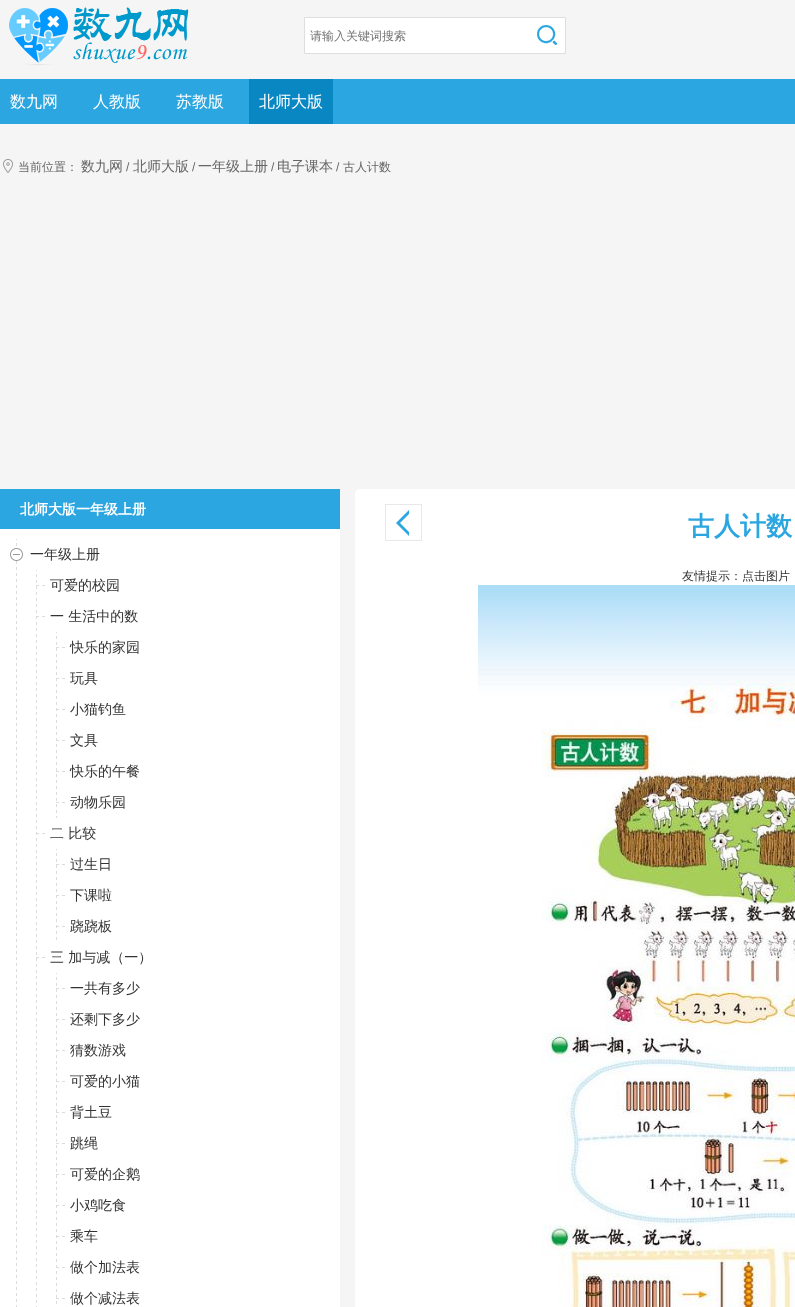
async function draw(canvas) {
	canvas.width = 795;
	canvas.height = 1307;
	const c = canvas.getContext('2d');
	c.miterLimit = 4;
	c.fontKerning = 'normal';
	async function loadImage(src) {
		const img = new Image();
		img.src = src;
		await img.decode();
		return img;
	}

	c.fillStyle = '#f5f5f5';
	c.fillRect(0, 0, 795, 1307);
	c.drawImage(await loadImage('img1.png'), 9, 7, 180, 58);
	c.fillStyle = '#fff';
	c.beginPath();
	c.rect(304.5, 17.5, 261, 36);
	c.fill();
	c.strokeStyle = '#dedede';
	c.stroke();
	c.font = '500 12px WenQuanYi Zen Hei';
	c.fillStyle = '#757575';
	c.fillText('请输入关键词搜索', 310, 40);
	c.drawImage(await loadImage('img2.png'), 537, 25, 20, 20);
	c.fillStyle = '#2ca6e0';
	c.fillRect(0, 79, 795, 45);
	c.font = '500 16px WenQuanYi Zen Hei';
	c.fillStyle = '#fff';
	for (const [text, x, y] of [
		['数九网', 10, 107],
		['人教版', 93, 107],
		['苏教版', 176, 107],
	]) {
		c.fillText(text, x, y);
	}
	c.fillStyle = '#0987c3';
	c.fillRect(249, 79, 84, 45);
	c.fillStyle = '#fff';
	c.fillText('北师大版', 259, 107);
	c.drawImage(await loadImage('img3.png'), 3, 159, 10, 14);
	c.font = '500 12px WenQuanYi Zen Hei';
	c.fillStyle = '#666';
	c.fillText('当前位置：', 18, 171);
	c.font = '500 14px WenQuanYi Zen Hei';
	c.fillText('数九网', 81, 171);
	c.font = '12px Liberation Sans';
	c.fillText('/', 126, 171);
	c.font = '500 14px WenQuanYi Zen Hei';
	c.fillText('北师大版', 133, 171);
	c.font = '12px Liberation Sans';
	c.fillText('/', 192, 171);
	c.font = '500 14px WenQuanYi Zen Hei';
	c.fillText('一年级上册', 198, 171);
	c.font = '12px Liberation Sans';
	c.fillText('/', 271, 171);
	c.font = '500 14px WenQuanYi Zen Hei';
	c.fillText('电子课本', 277, 171);
	c.font = '12px Liberation Sans';
	c.fillText('/', 336, 171);
	c.font = '500 12px WenQuanYi Zen Hei';
	c.fillText('古人计数', 343, 171);
	c.fillStyle = '#2ca6e0';
	c.fillRect(0, 489, 340, 40);
	c.font = 'bold 14px WenQuanYi Zen Hei';
	c.fillStyle = '#fff';
	c.fillText('北师大版一年级上册', 20, 514);
	c.fillRect(0, 529, 340, 778);
	c.drawImage(await loadImage('img4.png'), 16, 539, 1, 768);
	c.drawImage(await loadImage('img5.png'), 10, 548, 13, 13);
	c.font = '500 14px WenQuanYi Zen Hei';
	c.fillStyle = '#333';
	c.fillText('一年级上册', 30, 559);
	c.drawImage(await loadImage('img6.png'), 36, 570, 1, 737);
	c.beginPath();
	c.moveTo(36, 585.5);
	c.lineTo(39, 585.5);
	c.moveTo(42, 585.5);
	c.lineTo(45, 585.5);
	c.strokeStyle = '#dcdcdc';
	c.stroke();
	c.fillText('可爱的校园', 50, 590);
	c.beginPath();
	c.moveTo(36, 616.5);
	c.lineTo(39, 616.5);
	c.moveTo(42, 616.5);
	c.lineTo(45, 616.5);
	c.stroke();
	c.fillText('一 生活中的数', 50, 621);
	c.drawImage(await loadImage('img7.png'), 56, 632, 1, 186);
	c.beginPath();
	c.moveTo(56, 647.5);
	c.lineTo(59, 647.5);
	c.moveTo(62, 647.5);
	c.lineTo(65, 647.5);
	c.stroke();
	c.fillText('快乐的家园', 70, 652);
	c.beginPath();
	c.moveTo(56, 678.5);
	c.lineTo(59, 678.5);
	c.moveTo(62, 678.5);
	c.lineTo(65, 678.5);
	c.stroke();
	c.fillText('玩具', 70, 683);
	c.beginPath();
	c.moveTo(56, 709.5);
	c.lineTo(59, 709.5);
	c.moveTo(62, 709.5);
	c.lineTo(65, 709.5);
	c.stroke();
	c.fillText('小猫钓鱼', 70, 714);
	c.beginPath();
	c.moveTo(56, 740.5);
	c.lineTo(59, 740.5);
	c.moveTo(62, 740.5);
	c.lineTo(65, 740.5);
	c.stroke();
	c.fillText('文具', 70, 745);
	c.beginPath();
	c.moveTo(56, 771.5);
	c.lineTo(59, 771.5);
	c.moveTo(62, 771.5);
	c.lineTo(65, 771.5);
	c.stroke();
	c.fillText('快乐的午餐', 70, 776);
	c.beginPath();
	c.moveTo(56, 802.5);
	c.lineTo(59, 802.5);
	c.moveTo(62, 802.5);
	c.lineTo(65, 802.5);
	c.stroke();
	c.fillText('动物乐园', 70, 807);
	c.beginPath();
	c.moveTo(36, 833.5);
	c.lineTo(39, 833.5);
	c.moveTo(42, 833.5);
	c.lineTo(45, 833.5);
	c.stroke();
	c.fillText('二 比较', 50, 838);
	c.drawImage(await loadImage('img8.png'), 56, 849, 1, 91);
	c.beginPath();
	c.moveTo(56, 864.5);
	c.lineTo(59, 864.5);
	c.moveTo(62, 864.5);
	c.lineTo(65, 864.5);
	c.stroke();
	c.fillText('过生日', 70, 869);
	c.beginPath();
	c.moveTo(56, 895.5);
	c.lineTo(59, 895.5);
	c.moveTo(62, 895.5);
	c.lineTo(65, 895.5);
	c.stroke();
	c.fillText('下课啦', 70, 900);
	c.beginPath();
	c.moveTo(56, 926.5);
	c.lineTo(59, 926.5);
	c.moveTo(62, 926.5);
	c.lineTo(65, 926.5);
	c.stroke();
	c.fillText('跷跷板', 70, 931);
	c.beginPath();
	c.moveTo(36, 957.5);
	c.lineTo(39, 957.5);
	c.moveTo(42, 957.5);
	c.lineTo(45, 957.5);
	c.stroke();
	c.fillText('三 加与减（一）', 50, 962);
	c.drawImage(await loadImage('img9.png'), 56, 973, 1, 331);
	c.beginPath();
	c.moveTo(56, 988.5);
	c.lineTo(59, 988.5);
	c.moveTo(62, 988.5);
	c.lineTo(65, 988.5);
	c.stroke();
	c.fillText('一共有多少', 70, 993);
	c.beginPath();
	c.moveTo(56, 1019.5);
	c.lineTo(59, 1019.5);
	c.moveTo(62, 1019.5);
	c.lineTo(65, 1019.5);
	c.stroke();
	c.fillText('还剩下多少', 70, 1024);
	c.beginPath();
	c.moveTo(56, 1050.5);
	c.lineTo(59, 1050.5);
	c.moveTo(62, 1050.5);
	c.lineTo(65, 1050.5);
	c.stroke();
	c.fillText('猜数游戏', 70, 1055);
	c.beginPath();
	c.moveTo(56, 1081.5);
	c.lineTo(59, 1081.5);
	c.moveTo(62, 1081.5);
	c.lineTo(65, 1081.5);
	c.stroke();
	c.fillText('可爱的小猫', 70, 1086);
	c.beginPath();
	c.moveTo(56, 1112.5);
	c.lineTo(59, 1112.5);
	c.moveTo(62, 1112.5);
	c.lineTo(65, 1112.5);
	c.stroke();
	c.fillText('背土豆', 70, 1117);
	c.beginPath();
	c.moveTo(56, 1143.5);
	c.lineTo(59, 1143.5);
	c.moveTo(62, 1143.5);
	c.lineTo(65, 1143.5);
	c.stroke();
	c.fillText('跳绳', 70, 1148);
	c.beginPath();
	c.moveTo(56, 1174.5);
	c.lineTo(59, 1174.5);
	c.moveTo(62, 1174.5);
	c.lineTo(65, 1174.5);
	c.stroke();
	c.fillText('可爱的企鹅', 70, 1179);
	c.beginPath();
	c.moveTo(56, 1205.5);
	c.lineTo(59, 1205.5);
	c.moveTo(62, 1205.5);
	c.lineTo(65, 1205.5);
	c.stroke();
	c.fillText('小鸡吃食', 70, 1210);
	c.beginPath();
	c.moveTo(56, 1236.5);
	c.lineTo(59, 1236.5);
	c.moveTo(62, 1236.5);
	c.lineTo(65, 1236.5);
	c.stroke();
	c.fillText('乘车', 70, 1241);
	c.beginPath();
	c.moveTo(56, 1267.5);
	c.lineTo(59, 1267.5);
	c.moveTo(62, 1267.5);
	c.lineTo(65, 1267.5);
	c.stroke();
	c.fillText('做个加法表', 70, 1272);
	c.beginPath();
	c.moveTo(56, 1298.5);
	c.lineTo(59, 1298.5);
	c.moveTo(62, 1298.5);
	c.lineTo(65, 1298.5);
	c.stroke();
	c.fillText('做个减法表', 70, 1303);
	c.fillStyle = '#fff';
	c.beginPath();
	c.roundRect(355, 489, 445, 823, 5);
	c.fill();
	c.strokeStyle = '#e8e8e8';
	c.strokeRect(385.5, 504.5, 36, 36);
	c.fillStyle = '#2ca6e0';
	c.beginPath();
	c.moveTo(409, 510);
	c.lineTo(409, 536);
	c.lineTo(396, 523);
	c.closePath();
	c.fill();
	c.fillStyle = '#fff';
	c.beginPath();
	c.moveTo(413, 510);
	c.lineTo(413, 536);
	c.lineTo(400, 523);
	c.closePath();
	c.fill();
	c.font = 'bold 26px WenQuanYi Zen Hei';
	c.fillStyle = '#2ca6e0';
	c.fillText('古人计数', 688, 535);
	c.font = '500 12px WenQuanYi Zen Hei';
	c.fillStyle = '#333';
	c.fillText('友情提示：点击图片', 682, 580);
	c.drawImage(await loadImage('img10.png'), 478, 585, 317, 722);
}

draw(document.querySelector('canvas'));
